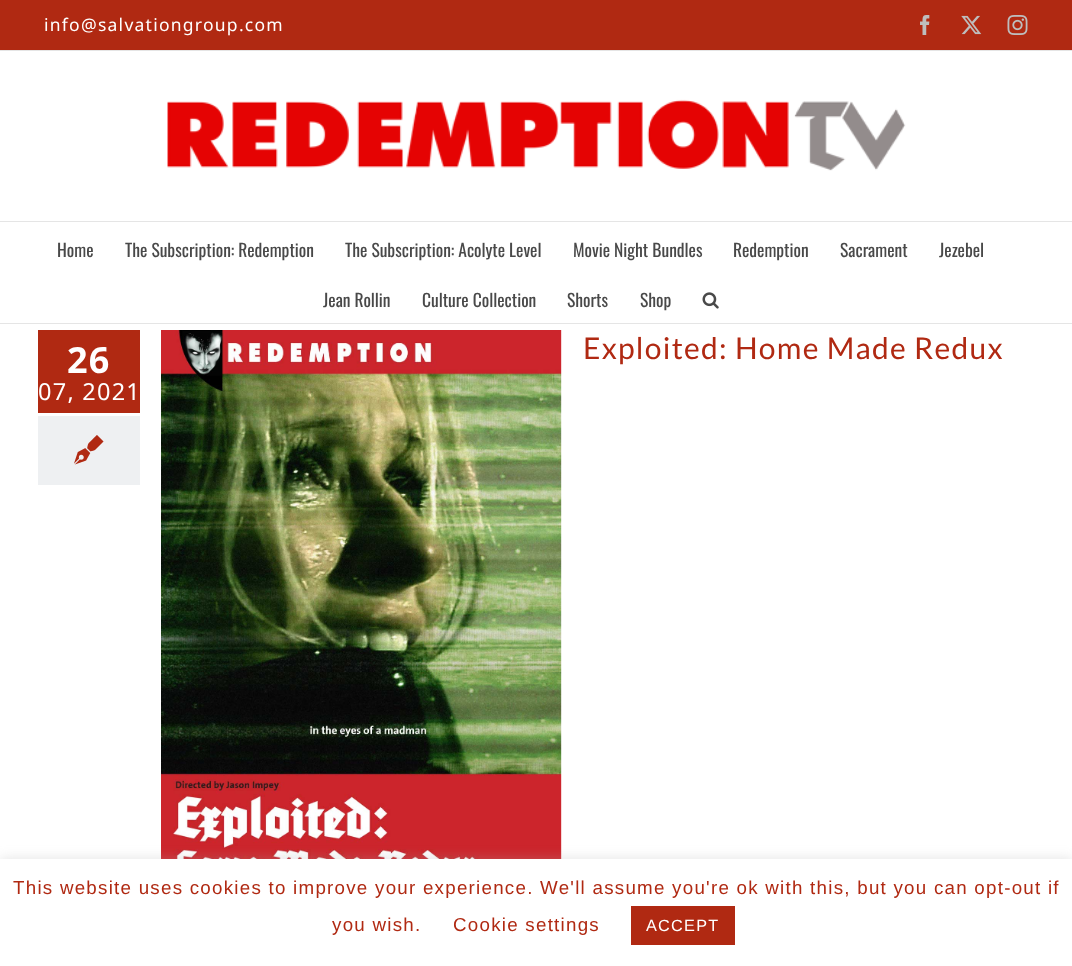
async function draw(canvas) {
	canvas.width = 1072;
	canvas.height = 966;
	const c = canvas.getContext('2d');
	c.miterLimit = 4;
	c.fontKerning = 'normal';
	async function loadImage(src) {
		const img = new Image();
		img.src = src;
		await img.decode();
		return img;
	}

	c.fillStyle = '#fff';
	c.fillRect(0, 0, 1072, 966);
	c.fillStyle = '#b02912';
	c.fillRect(0, 0, 1072, 50);
	c.fillStyle = '#e5e5e5';
	c.fillRect(0, 50, 1072, 1);
	c.letterSpacing = '1.25px';
	c.font = '17.5px Noto Sans';
	c.fillStyle = '#fff';
	c.fillText('info@salvationgroup.com', 44, 31);
	c.drawImage(await loadImage('img1.png'), 920, 15, 10, 20);
	c.drawImage(await loadImage('img2.png'), 961, 15, 21, 20);
	c.drawImage(await loadImage('img3.png'), 1007, 15, 21, 20);
	c.fillStyle = '#e5e5e5';
	c.fillRect(0, 221, 1072, 1);
	c.drawImage(await loadImage('img4.png'), 167, 99, 739, 72);
	c.fillRect(0, 323, 1072, 1);
	c.letterSpacing = '0px';
	c.font = '17.5px Oswald';
	c.fillStyle = '#494949';
	for (const [text, x, y] of [
		['Home', 57, 257],
		['The Subscription: Redemption', 125, 257],
		['The Subscription: Acolyte Level', 345, 257],
		['Movie Night Bundles', 573, 257],
		['Redemption', 733, 257],
		['Sacrament', 840, 257],
		['Jezebel', 939, 257],
		['Jean Rollin', 323, 307],
		['Culture Collection', 422, 307],
		['Shorts', 567, 307],
		['Shop', 640, 307],
	]) {
		c.fillText(text, x, y);
	}
	c.drawImage(await loadImage('img5.png'), 702, 292, 17, 17);
	c.fillStyle = '#b02912';
	c.fillRect(38, 330, 102, 83);
	c.letterSpacing = '1.25px';
	c.font = 'bold 36px Noto Sans';
	c.fillStyle = '#fff';
	c.fillText('26', 67, 373);
	c.font = '23.5px Noto Sans';
	c.fillText('07, 2021', 38, 400);
	c.fillStyle = '#eef0f2';
	c.fillRect(38, 416, 102, 69);
	c.drawImage(await loadImage('img6.png'), 74, 435, 30, 30);
	c.drawImage(await loadImage('img7.png'), 161, 330, 401, 529);
	c.font = '30px Lato';
	c.fillStyle = '#b02912';
	c.fillText('Exploited: Home Made Redux', 583, 359);
	c.fillStyle = '#acabab4d';
	c.filter = 'blur(6px)';
	c.beginPath();
	c.rect(0, 858, 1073, 107);
	c.fill();
	c.filter = 'none';
	c.fillStyle = '#fff';
	c.fillRect(0, 859, 1072, 107);
	c.font = '18.75px Liberation Sans';
	c.fillStyle = '#b02912';
	for (const [text, x, y] of [
		['This website uses cookies to improve your experience. We\'ll assume you\'re ok with this, but you can opt-out if', 13, 894],
		['you wish.', 332, 931],
		['Cookie settings', 453, 931],
	]) {
		c.fillText(text, x, y);
	}
	c.fillRect(631, 906, 104, 39);
	c.font = '16.25px Liberation Sans';
	c.fillStyle = '#fff';
	c.fillText('ACCEPT', 646, 931);
}

draw(document.querySelector('canvas'));
